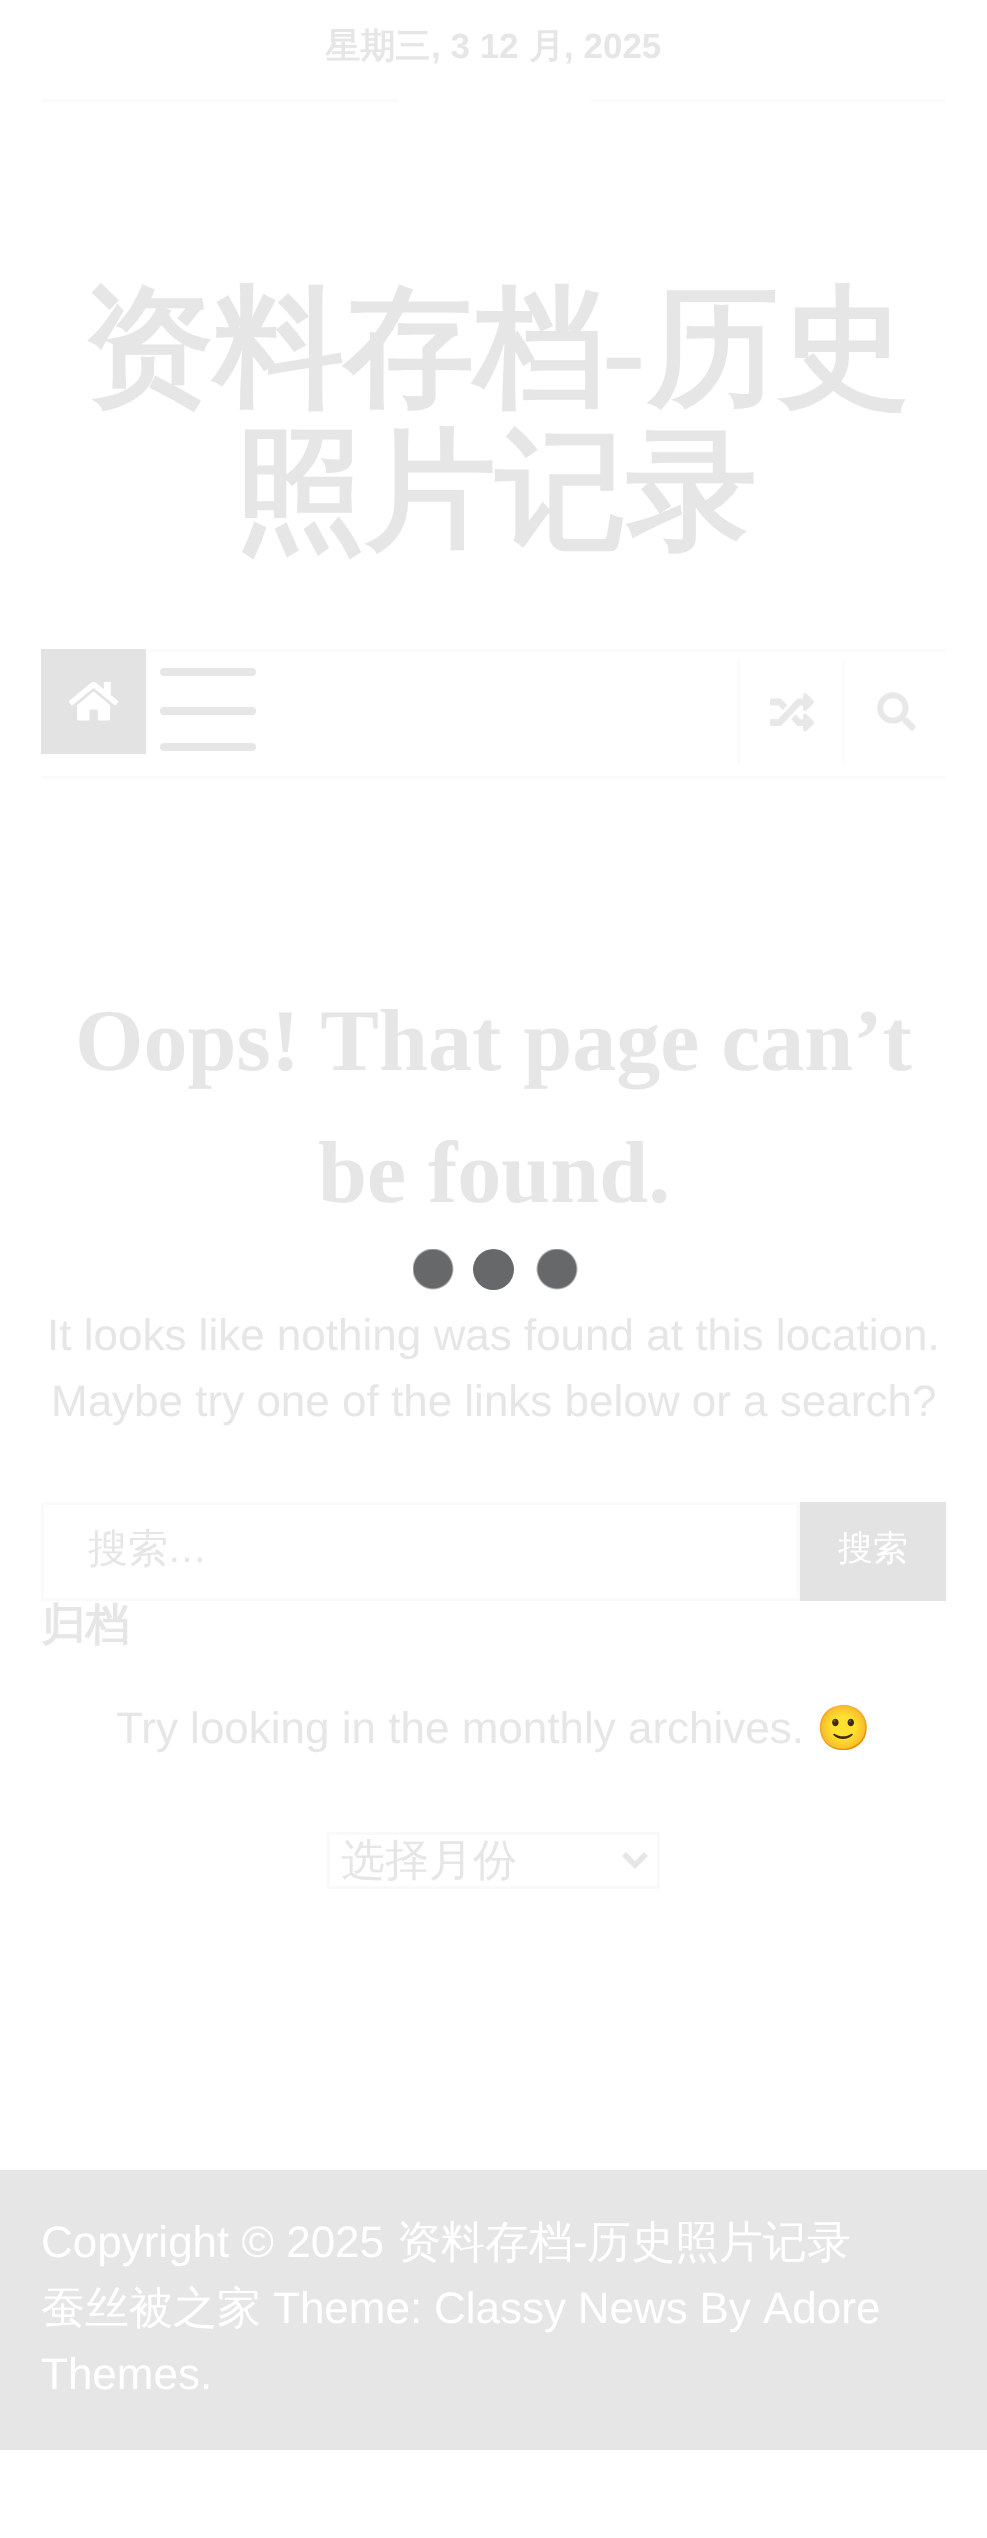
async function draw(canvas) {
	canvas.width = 987;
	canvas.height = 2538;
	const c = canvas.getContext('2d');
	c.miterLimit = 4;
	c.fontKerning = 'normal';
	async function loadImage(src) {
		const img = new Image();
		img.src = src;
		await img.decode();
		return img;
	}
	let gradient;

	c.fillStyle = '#fff';
	c.fillRect(0, 0, 987, 2538);
	c.font = 'bold 35px WenQuanYi Zen Hei';
	c.fillStyle = '#e6e6e6';
	c.fillText('星期三', 325, 58);
	c.font = 'bold 35px Liberation Sans';
	c.fillText(', 3 12', 431, 58);
	c.font = 'bold 35px WenQuanYi Zen Hei';
	c.fillText('月', 529, 58);
	c.font = 'bold 35px Liberation Sans';
	c.fillText(', 2025', 564, 58);
	c.fillStyle = '#fbfbfb';
	c.fillRect(41, 99, 905, 3);
	c.fillStyle = '#fff';
	c.fillRect(399, 99, 192, 3);
	c.font = 'bold 130.5px WenQuanYi Zen Hei';
	c.fillStyle = '#e6e6e6';
	c.fillText('资料存档', 81, 394);
	c.font = 'bold 130.5px Liberation Serif';
	c.fillText('-', 602, 394);
	c.font = 'bold 130.5px WenQuanYi Zen Hei';
	c.fillText('历史', 646, 394);
	c.fillText('照片记录', 233, 537);
	c.fillStyle = '#e3e3e3';
	c.fillRect(41, 649, 105, 105);
	c.drawImage(await loadImage('img1.png'), 68, 682, 51, 39);
	c.fillStyle = '#e6e6e6';
	c.beginPath();
	c.roundRect(160, 668, 96, 8, 4);
	c.fill();
	c.beginPath();
	c.roundRect(160, 707, 96, 8, 4);
	c.fill();
	c.beginPath();
	c.roundRect(160, 743, 96, 8, 4);
	c.fill();
	c.fillStyle = '#fbfbfb';
	c.fillRect(737, 660, 3, 105);
	c.drawImage(await loadImage('img2.png'), 770, 693, 44, 39);
	c.fillStyle = '#fcfcfc';
	c.fillRect(842, 660, 3, 105);
	c.drawImage(await loadImage('img3.png'), 877, 692, 39, 39);
	c.fillStyle = '#fbfbfb';
	c.fillRect(146, 649, 800, 3);
	c.fillRect(41, 776, 905, 3);
	c.font = 'bold 88px Liberation Serif';
	c.fillStyle = '#e6e6e6';
	c.fillText('Oops! That page can’t', 75, 1070);
	c.fillText('be found.', 318, 1202);
	c.font = '44px Liberation Sans';
	c.fillText('It looks like nothing was found at this location.', 47, 1350);
	c.fillText('Maybe try one of the links below or a search?', 51, 1416);
	c.strokeStyle = '#fafafa';
	c.lineWidth = 3;
	c.strokeRect(42.5, 1503.5, 756, 96);
	c.font = '500 40px WenQuanYi Zen Hei';
	c.fillText('搜索', 88, 1562);
	c.font = '40px Liberation Sans';
	c.fillText('…', 167, 1562);
	c.fillStyle = '#e3e3e3';
	c.fillRect(800, 1502, 146, 99);
	c.font = '500 35px WenQuanYi Zen Hei';
	c.fillStyle = '#fff';
	c.fillText('搜索', 838, 1560);
	c.font = 'bold 44px WenQuanYi Zen Hei';
	c.fillStyle = '#e6e6e6';
	c.fillText('归档', 41, 1640);
	c.font = '44px Liberation Sans';
	c.fillText('Try looking in the monthly archives.', 116, 1743);
	c.font = '44px Noto Color Emoji';
	c.fillText('🙂', 816, 1743);
	c.strokeStyle = '#f9f9f9';
	c.strokeRect(328.5, 1833.5, 330, 54);
	c.beginPath();
	c.moveTo(624, 1854);
	c.lineTo(635, 1865);
	c.lineTo(646, 1854);
	c.strokeStyle = '#e6e6e6';
	c.lineWidth = 5.5;
	c.stroke();
	c.font = '500 44px WenQuanYi Zen Hei';
	c.fillText('选择月份', 341, 1875);
	gradient = c.createRadialGradient(557, 1269, 0, 557, 1269, 21);
	gradient.addColorStop(0.9, '#676869');
	gradient.addColorStop(1, '#fff');
	c.fillStyle = gradient;
	c.fillRect(536, 1249, 42, 41);
	gradient = c.createRadialGradient(433, 1269, 0, 433, 1269, 21);
	gradient.addColorStop(0.9, '#676869');
	gradient.addColorStop(1, '#fff');
	c.fillStyle = gradient;
	c.fillRect(413, 1249, 41, 41);
	c.fillStyle = '#676869';
	c.beginPath();
	c.arc(493.5, 1269.5, 20.5, 0, 2 * Math.PI);
	c.fill();
	c.fillStyle = '#e6e6e6';
	c.fillRect(0, 2170, 987, 280);
	c.font = '44px Liberation Sans';
	c.fillStyle = '#fff';
	c.fillText('Copyright © 2025', 41, 2257);
	c.font = '500 44px WenQuanYi Zen Hei';
	c.fillText('资料存档', 397, 2257);
	c.font = '44px Liberation Sans';
	c.fillText('-', 573, 2257);
	c.font = '500 44px WenQuanYi Zen Hei';
	c.fillText('历史照片记录', 587, 2257);
	c.fillText('蚕丝被之家', 41, 2323);
	c.wordSpacing = '-0.5px';
	c.font = '44px Liberation Sans';
	c.fillText('Theme: Classy News By', 273, 2323);
	c.wordSpacing = '0px';
	for (const [text, x, y] of [
		['Adore', 763, 2323],
		['Themes', 41, 2389],
		['.', 200, 2389],
	]) {
		c.fillText(text, x, y);
	}
}

draw(document.querySelector('canvas'));
